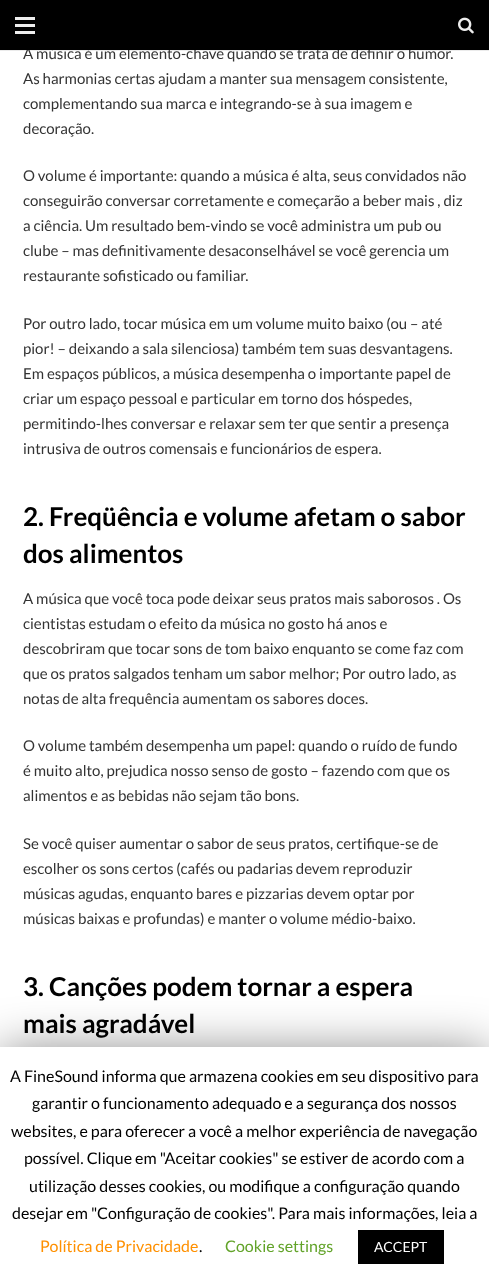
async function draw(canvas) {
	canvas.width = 489;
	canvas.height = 1282;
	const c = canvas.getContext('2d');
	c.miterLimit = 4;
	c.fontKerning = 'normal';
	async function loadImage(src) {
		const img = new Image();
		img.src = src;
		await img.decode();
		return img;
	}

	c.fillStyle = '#fff';
	c.fillRect(0, 0, 489, 1282);
	c.fillStyle = '#00000014';
	c.fillRect(0, 50, 489, 1);
	c.font = '15px Lato';
	c.fillStyle = '#333';
	c.fillText('A música é um elemento-chave quando se trata de definir o humor.', 23, 59);
	for (const [x, y, w, h, color] of [
		[0, 0, 489, 50, '#000'],
		[15, 24, 20, 3, '#ededed'],
		[15, 17, 20, 3, '#ededed'],
		[15, 31, 20, 3, '#ededed'],
	]) {
		c.fillStyle = color;
		c.fillRect(x, y, w, h);
	}
	c.drawImage(await loadImage('img1.png'), 458, 17, 16, 17);
	c.fillStyle = '#333';
	for (const [text, x, y] of [
		['As harmonias certas ajudam a manter sua mensagem consistente,', 23, 84],
		['complementando sua marca e integrando-se à sua imagem e', 23, 109],
		['decoração.', 23, 134],
		['O volume é importante: quando a música é alta, seus convidados não', 23, 181],
		['conseguirão conversar corretamente e começarão a beber mais , diz', 23, 206],
		['a ciência. Um resultado bem-vindo se você administra um pub ou', 23, 231],
		['clube – mas definitivamente desaconselhável se você gerencia um', 23, 256],
		['restaurante sofisticado ou familiar.', 23, 281],
		['Por outro lado, tocar música em um volume muito baixo (ou – até', 23, 329],
		['pior! – deixando a sala silenciosa) também tem suas desvantagens.', 23, 354],
		['Em espaços públicos, a música desempenha o importante papel de', 23, 379],
		['criar um espaço pessoal e particular em torno dos hóspedes,', 23, 404],
		['permitindo-lhes conversar e relaxar sem ter que sentir a presença', 23, 429],
		['intrusiva de outros comensais e funcionários de espera.', 23, 454],
	]) {
		c.fillText(text, x, y);
	}
	c.font = 'bold 26px Lato';
	c.fillStyle = '#000';
	c.fillText('2. Freqüência e volume afetam o sabor', 23, 526);
	c.fillText('dos alimentos', 23, 563);
	c.font = '15px Lato';
	c.fillStyle = '#333';
	for (const [text, x, y] of [
		['A música que você toca pode deixar seus pratos mais saborosos . Os', 23, 604],
		['cientistas estudam o efeito da música no gosto há anos e', 23, 629],
		['descobriram que tocar sons de tom baixo enquanto se come faz com', 23, 654],
		['que os pratos salgados tenham um sabor melhor; Por outro lado, as', 23, 679],
		['notas de alta frequência aumentam os sabores doces.', 23, 704],
		['O volume também desempenha um papel: quando o ruído de fundo', 23, 751],
		['é muito alto, prejudica nosso senso de gosto – fazendo com que os', 23, 776],
		['alimentos e as bebidas não sejam tão bons.', 23, 801],
		['Se você quiser aumentar o sabor de seus pratos, certifique-se de', 23, 849],
		['escolher os sons certos (cafés ou padarias devem reproduzir', 23, 874],
		['músicas agudas, enquanto bares e pizzarias devem optar por', 23, 899],
		['músicas baixas e profundas) e manter o volume médio-baixo.', 23, 924],
	]) {
		c.fillText(text, x, y);
	}
	c.font = 'bold 26px Lato';
	c.fillStyle = '#000';
	c.fillText('3. Canções podem tornar a espera', 23, 996);
	c.fillText('mais agradável', 23, 1033);
	c.fillStyle = '#00000080';
	c.filter = 'blur(25px)';
	c.beginPath();
	c.rect(0, 1052, 489, 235);
	c.fill();
	c.filter = 'none';
	c.fillStyle = '#fff';
	c.fillRect(0, 1047, 489, 235);
	c.font = '16px Lato';
	c.fillStyle = '#000';
	for (const [text, x, y] of [
		['A FineSound informa que armazena cookies em seu dispositivo para', 10, 1082],
		['garantir o funcionamento adequado e a segurança dos nossos', 32, 1109],
		['websites, e para oferecer a você a melhor experiência de navegação', 11, 1137],
		['possível. Clique em "Aceitar cookies" se estiver de acordo com a', 24, 1164],
		['utilização desses cookies, ou modifique a configuração quando', 29, 1192],
		['desejar em "Configuração de cookies". Para mais informações, leia a', 12, 1219],
	]) {
		c.fillText(text, x, y);
	}
	c.fillStyle = '#ff9000';
	c.fillText('Política de Privacidade', 40, 1252);
	c.fillStyle = '#000';
	c.fillText('.', 199, 1252);
	c.fillStyle = '#62a329';
	c.fillText('Cookie settings', 225, 1252);
	c.fillStyle = '#000';
	c.fillRect(358, 1230, 86, 34);
	c.font = '14px Lato';
	c.fillStyle = '#fff';
	c.fillText('ACCEPT', 374, 1252);
}

draw(document.querySelector('canvas'));
